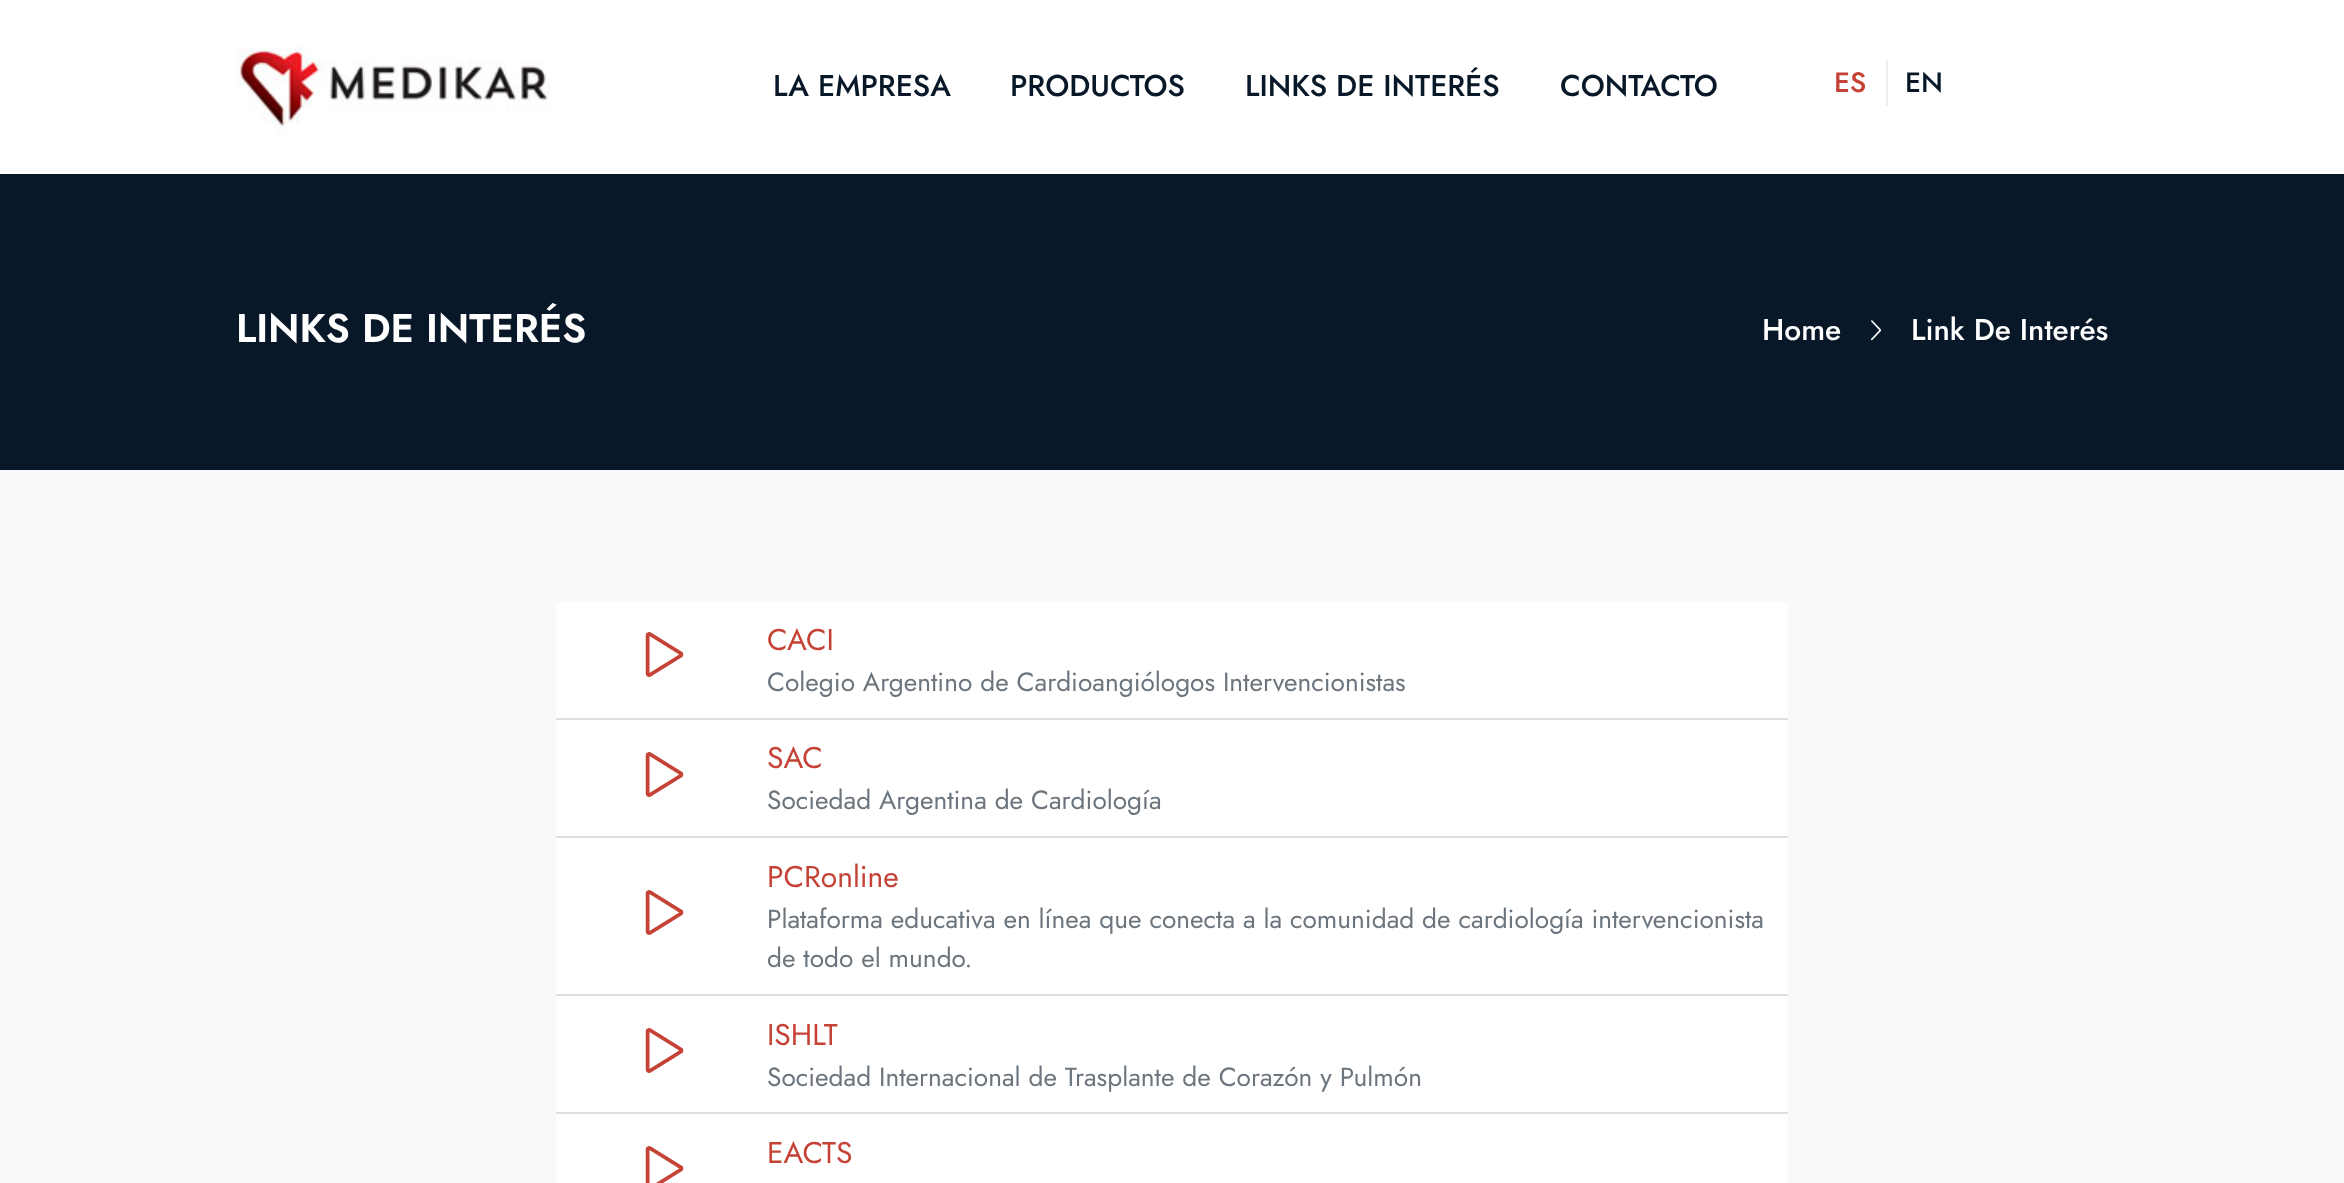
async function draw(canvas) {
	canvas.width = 2344;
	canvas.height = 1183;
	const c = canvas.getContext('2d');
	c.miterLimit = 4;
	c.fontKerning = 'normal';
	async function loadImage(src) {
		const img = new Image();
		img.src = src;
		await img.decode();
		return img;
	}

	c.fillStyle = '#f9f9f9';
	c.fillRect(0, 0, 2344, 1183);
	c.fillStyle = '#fff';
	c.fillRect(0, 0, 2344, 174);
	c.drawImage(await loadImage('img1.png'), 236, 46, 314, 90);
	c.font = '500 30px Jost';
	c.fillStyle = '#081828';
	for (const [text, x, y] of [
		['LA EMPRESA', 773, 96],
		['PRODUCTOS', 1010, 96],
		['LINKS DE INTERÉS', 1245, 96],
		['CONTACTO', 1560, 96],
	]) {
		c.fillText(text, x, y);
	}
	c.fillStyle = '#eee';
	c.fillRect(1886, 60, 2, 46);
	c.font = '500 28px Jost';
	c.fillStyle = '#c54336';
	c.fillText('ES', 1834, 92);
	c.fillStyle = '#081828';
	c.fillText('EN', 1905, 92);
	c.fillRect(0, 174, 2344, 296);
	c.font = '600 40px Jost';
	c.fillStyle = '#fff';
	c.fillText('LINKS DE INTERÉS', 236, 342);
	c.font = '500 30px Jost';
	c.fillText('Home', 1762, 340);
	c.drawImage(await loadImage('img2.png'), 1870, 320, 11, 21);
	c.fillText('Link De Interés', 1911, 340);
	c.fillRect(556, 602, 1232, 116);
	c.fillStyle = '#dfdfdf';
	c.fillRect(556, 718, 1232, 2);
	c.drawImage(await loadImage('img3.png'), 645, 632, 39, 45);
	c.font = '30px Jost';
	c.fillStyle = '#c54336';
	c.fillText('CACI', 767, 650);
	c.font = '26.25px Jost';
	c.fillStyle = '#6c757d';
	c.fillText('Colegio Argentino de Cardioangiólogos Intervencionistas', 767, 691);
	c.fillStyle = '#fff';
	c.fillRect(556, 720, 1232, 116);
	c.fillStyle = '#dfdfdf';
	c.fillRect(556, 836, 1232, 2);
	c.drawImage(await loadImage('img3.png'), 645, 752, 39, 45);
	c.font = '30px Jost';
	c.fillStyle = '#c54336';
	c.fillText('SAC', 767, 768);
	c.font = '26.25px Jost';
	c.fillStyle = '#6c757d';
	c.fillText('Sociedad Argentina de Cardiología', 767, 809);
	c.fillStyle = '#fff';
	c.fillRect(556, 838, 1232, 156);
	c.fillStyle = '#dfdfdf';
	c.fillRect(556, 994, 1232, 2);
	c.drawImage(await loadImage('img3.png'), 645, 890, 39, 45);
	c.font = '30px Jost';
	c.fillStyle = '#c54336';
	c.fillText('PCRonline', 767, 887);
	c.font = '26.25px Jost';
	c.fillStyle = '#6c757d';
	c.fillText('Plataforma educativa en línea que conecta a la comunidad de cardiología intervencionista', 767, 928);
	c.fillText('de todo el mundo.', 767, 967);
	c.fillStyle = '#fff';
	c.fillRect(556, 996, 1232, 116);
	c.fillStyle = '#dfdfdf';
	c.fillRect(556, 1112, 1232, 2);
	c.drawImage(await loadImage('img3.png'), 645, 1028, 39, 45);
	c.font = '30px Jost';
	c.fillStyle = '#c54336';
	c.fillText('ISHLT', 767, 1045);
	c.font = '26.25px Jost';
	c.fillStyle = '#6c757d';
	c.fillText('Sociedad Internacional de Trasplante de Corazón y Pulmón', 767, 1086);
	c.fillStyle = '#fff';
	c.fillRect(556, 1114, 1232, 69);
	c.drawImage(await loadImage('img4.png'), 645, 1146, 39, 37);
	c.font = '30px Jost';
	c.fillStyle = '#c54336';
	c.fillText('EACTS', 767, 1163);
}

draw(document.querySelector('canvas'));
